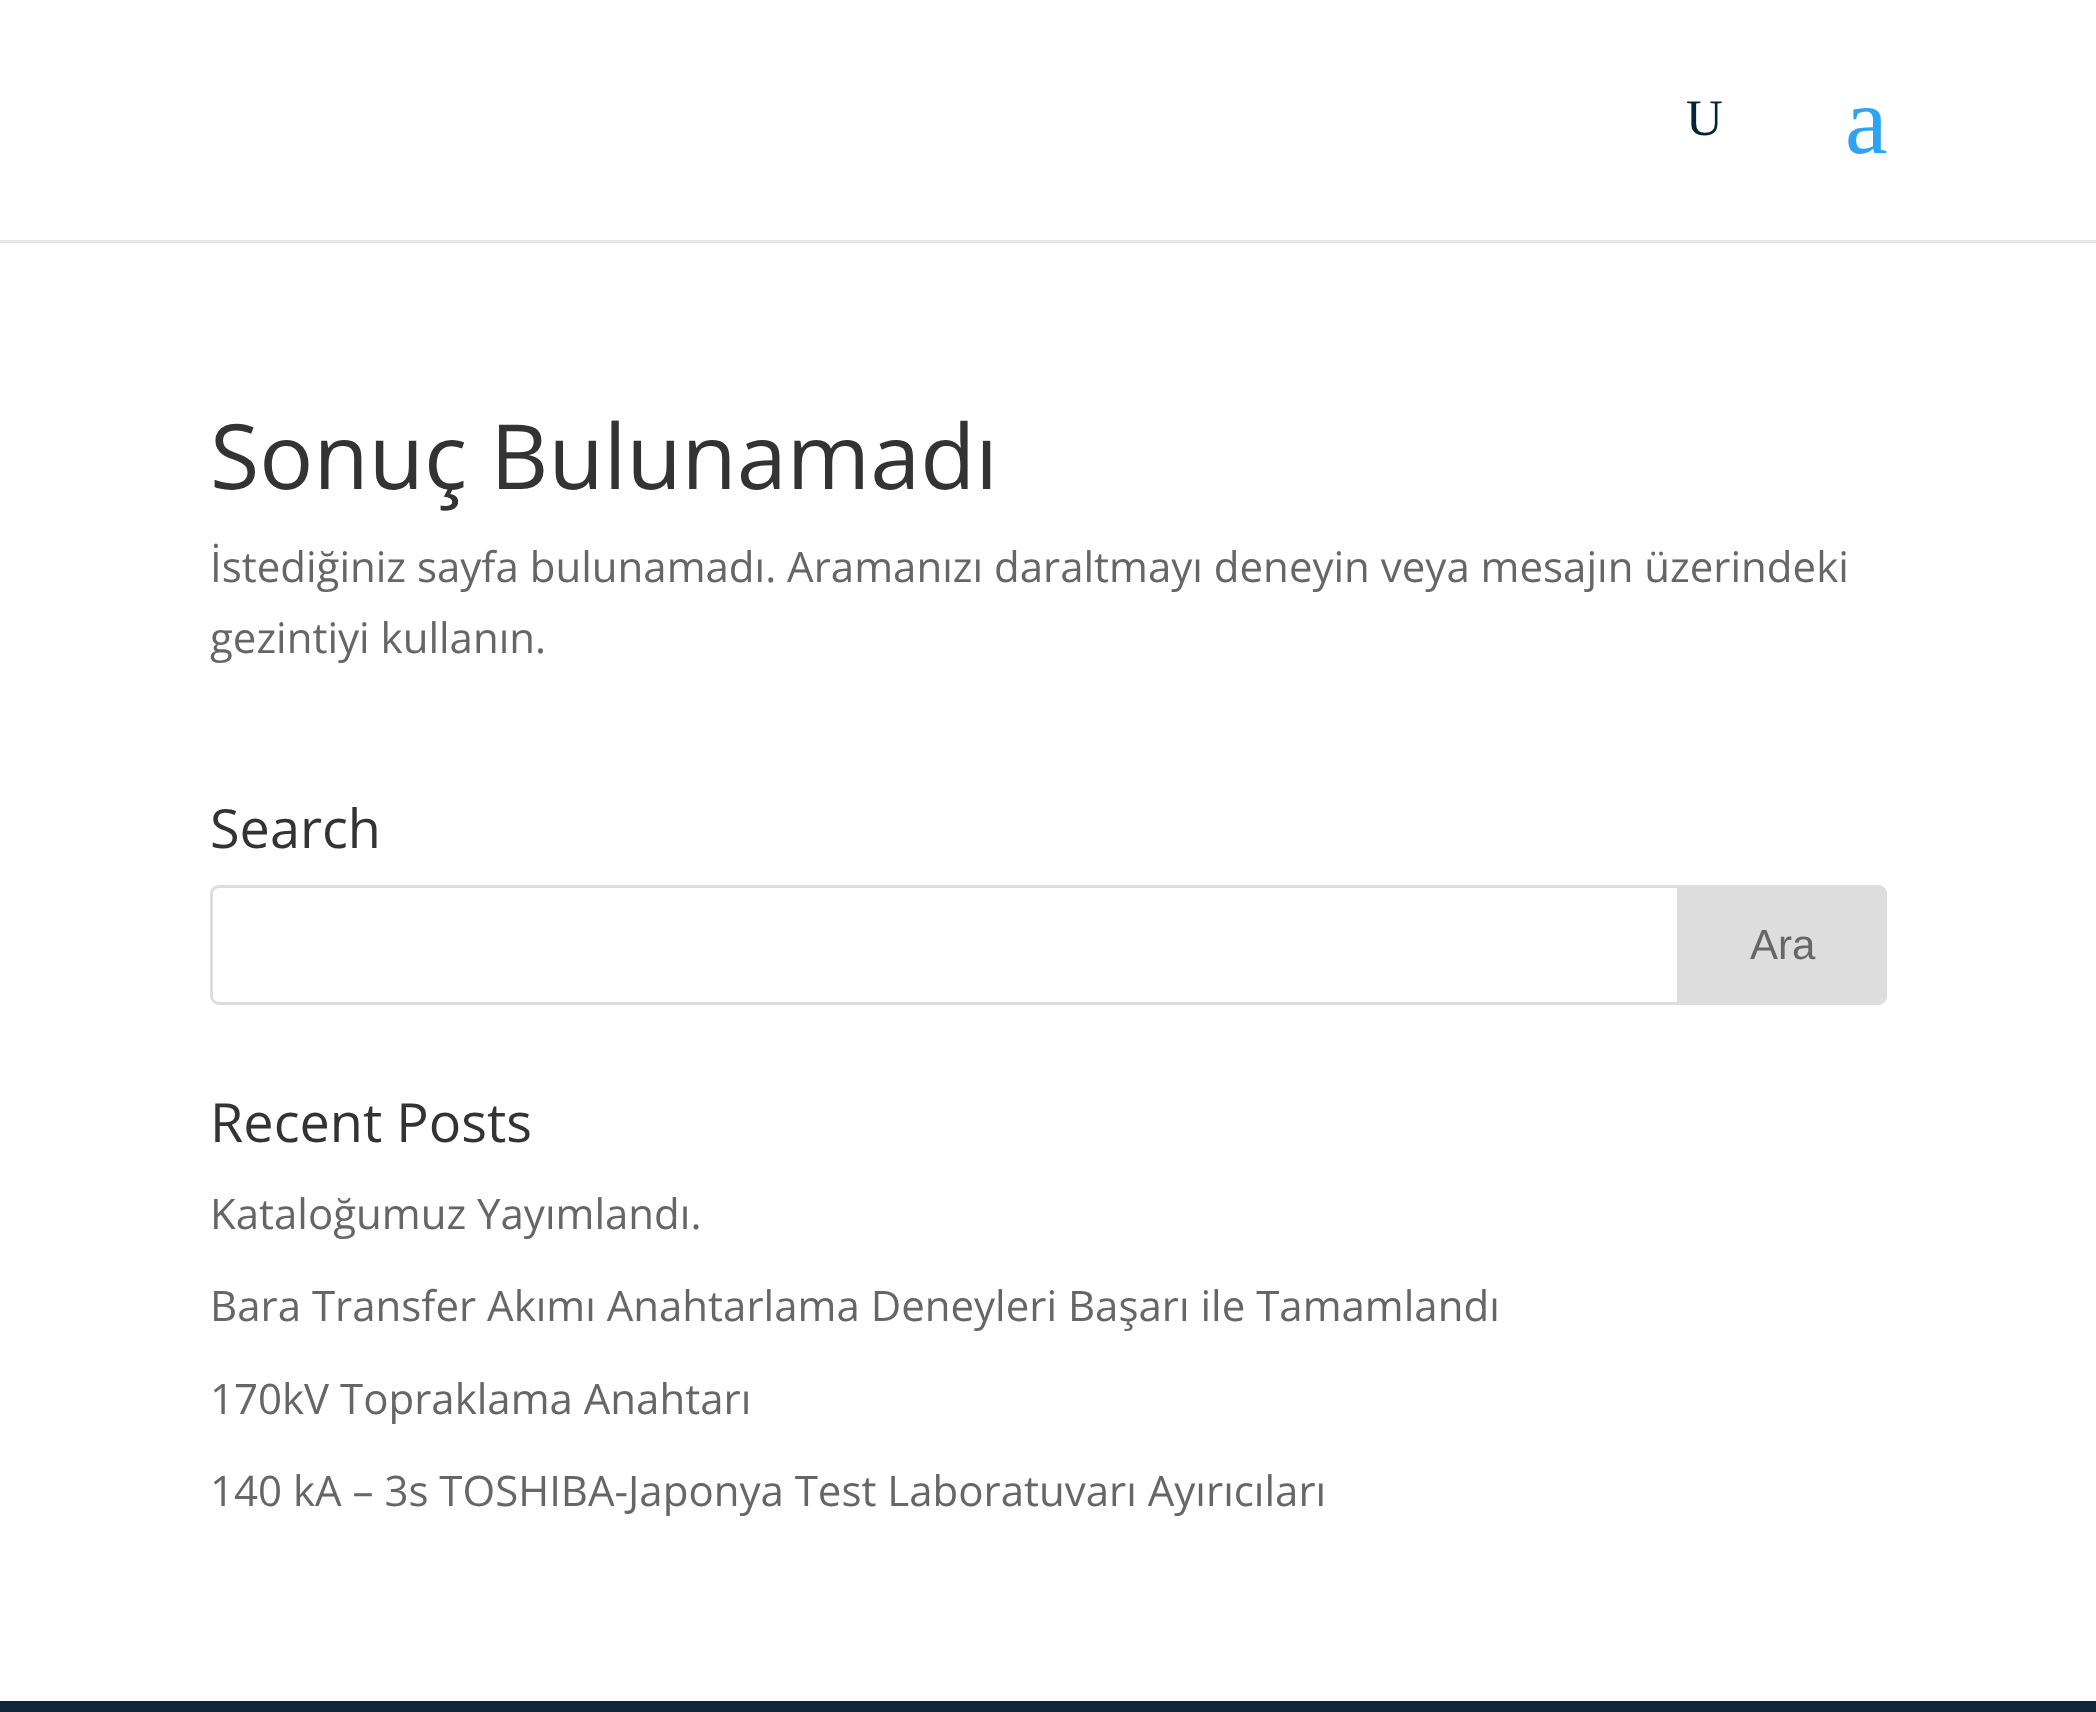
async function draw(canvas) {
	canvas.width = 2096;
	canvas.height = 1712;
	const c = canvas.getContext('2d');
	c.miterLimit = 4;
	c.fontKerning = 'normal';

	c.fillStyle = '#fff';
	c.fillRect(0, 0, 2096, 1712);
	c.fillStyle = '#e6e6e6';
	c.fillRect(0, 240, 2096, 3);
	c.font = '51px Liberation Serif';
	c.fillStyle = '#012639';
	c.fillText('U', 1686, 135);
	c.font = '96px Liberation Serif';
	c.fillStyle = '#2ea3f2';
	c.fillText('a', 1845, 153);
	c.font = '90px Open Sans';
	c.fillStyle = '#333';
	c.fillText('Sonuç Bulunamadı', 210, 489);
	c.font = '42px Open Sans';
	c.fillStyle = '#666';
	c.fillText('İstediğiniz sayfa bulunamadı. Aramanızı daraltmayı deneyin veya mesajın üzerindeki', 210, 582);
	c.fillText('gezintiyi kullanın.', 210, 653);
	c.font = '54px Open Sans';
	c.fillStyle = '#333';
	c.fillText('Search', 210, 848);
	c.beginPath();
	c.roundRect(211.5, 886.5, 1674, 117, 7.5);
	c.strokeStyle = '#ddd';
	c.lineWidth = 3;
	c.stroke();
	c.fillStyle = '#ddd';
	c.beginPath();
	c.roundRect(1678.5, 886.5, 207, 117, [0, 7.5, 7.5, 0]);
	c.fill();
	c.stroke();
	c.font = '42px Liberation Sans';
	c.fillStyle = '#666';
	c.fillText('Ara', 1750, 959);
	c.font = '54px Open Sans';
	c.fillStyle = '#333';
	c.fillText('Recent Posts', 210, 1142);
	c.font = '42px Open Sans';
	c.fillStyle = '#666';
	for (const [text, x, y] of [
		['Kataloğumuz Yayımlandı.', 210, 1229],
		['Bara Transfer Akımı Anahtarlama Deneyleri Başarı ile Tamamlandı', 210, 1321],
		['170kV Topraklama Anahtarı', 210, 1414],
		['140 kA – 3s TOSHIBA-Japonya Test Laboratuvarı Ayırıcıları', 210, 1506],
	]) {
		c.fillText(text, x, y);
	}
	c.fillStyle = '#0f253a';
	c.fillRect(0, 1701, 2096, 11);
}

draw(document.querySelector('canvas'));
